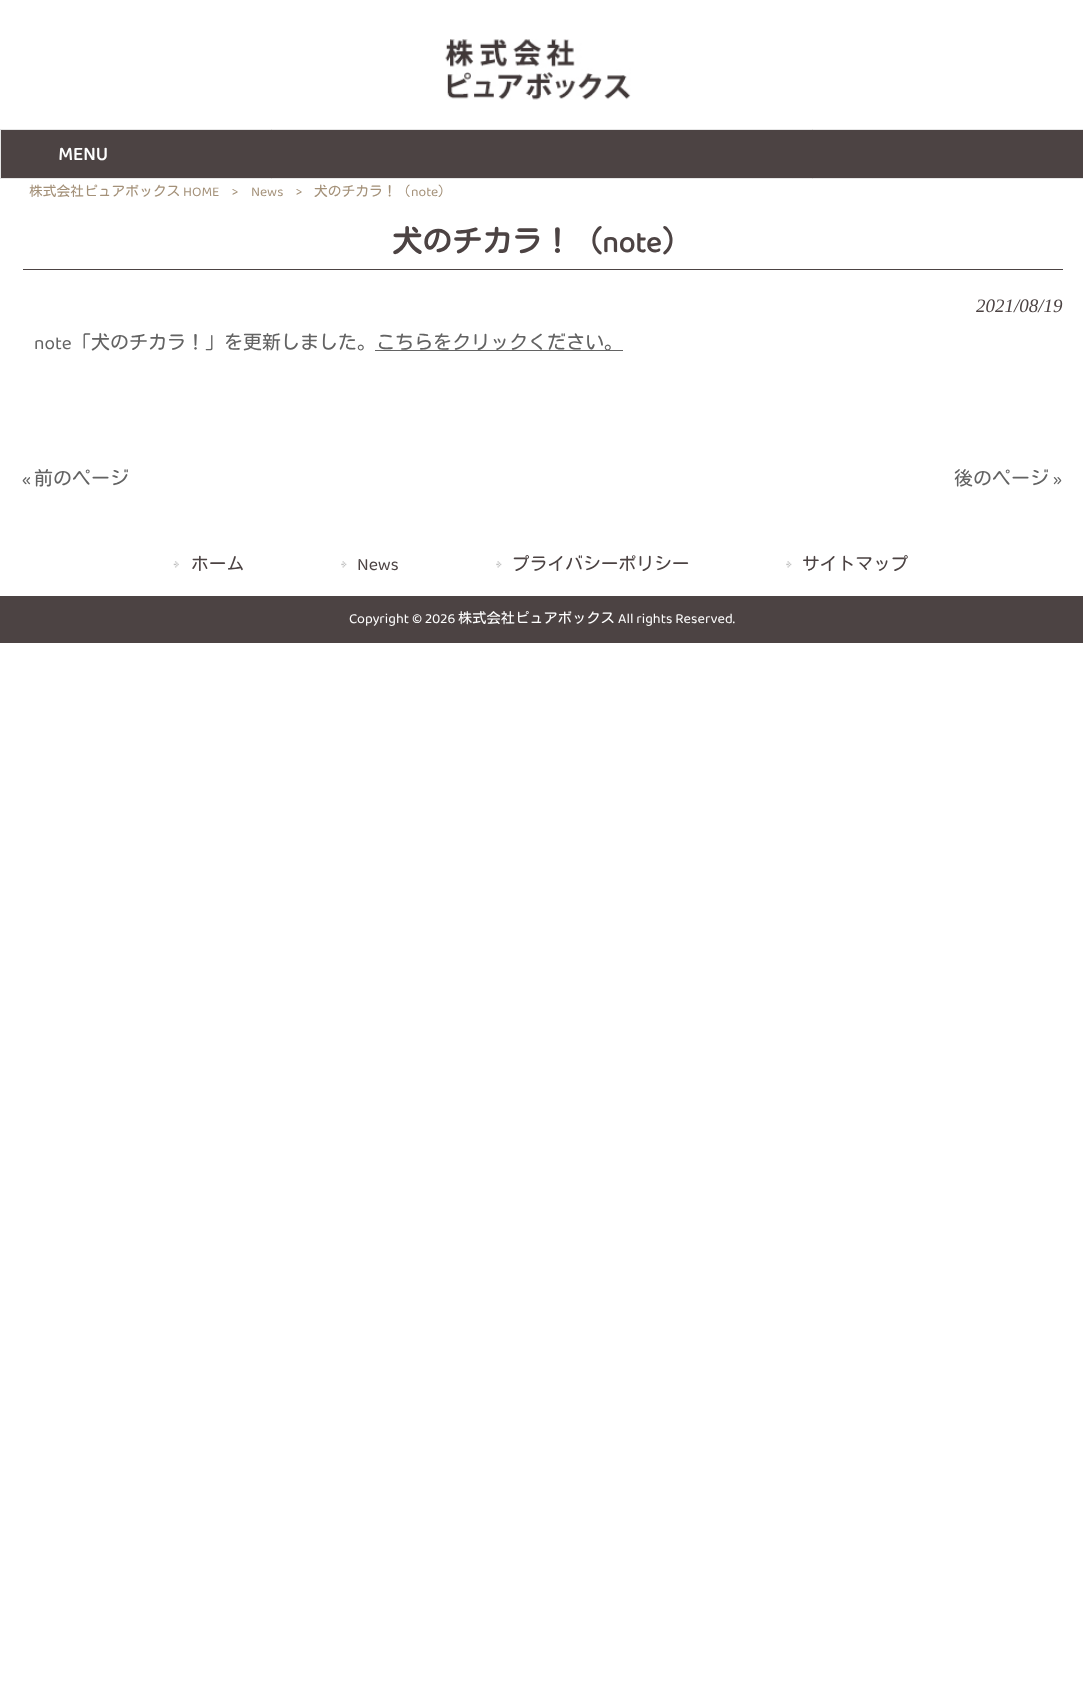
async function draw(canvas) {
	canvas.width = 1083;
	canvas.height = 1695;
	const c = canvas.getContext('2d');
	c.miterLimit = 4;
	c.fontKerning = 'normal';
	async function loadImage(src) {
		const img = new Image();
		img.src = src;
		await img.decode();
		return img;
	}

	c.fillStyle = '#fff';
	c.fillRect(0, 0, 1083, 1695);
	c.drawImage(await loadImage('img1.png'), 445, 39, 186, 61);
	c.fillStyle = '#4c4343';
	c.beginPath();
	c.rect(0.5, 129.5, 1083, 49);
	c.fill();
	c.strokeStyle = '#e6e6e6';
	c.stroke();
	c.font = 'bold 19px "Baloo 2"';
	c.fillStyle = '#fff';
	c.fillText('MENU', 58, 160);
	c.font = '13.75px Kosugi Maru';
	c.fillStyle = '#a49179';
	c.fillText('株式会社ピュアボックス', 29, 196);
	c.font = '13.75px "Baloo 2"';
	for (const [text, x, y] of [
		['HOME', 183, 196],
		['>', 232, 196],
		['News', 251, 196],
		['>', 296, 196],
	]) {
		c.fillText(text, x, y);
	}
	c.font = '13.75px Kosugi Maru';
	c.fillText('犬のチカラ！（', 314, 196);
	c.font = '13.75px "Baloo 2"';
	c.fillText('note', 411, 196);
	c.font = '13.75px Kosugi Maru';
	c.fillText('）', 438, 196);
	c.font = 'bold 30px Kosugi Maru';
	c.fillStyle = '#4c4343';
	c.fillText('犬のチカラ！（', 392, 252);
	c.font = 'bold 30px "Baloo 2"';
	c.fillText('note', 602, 252);
	c.font = 'bold 30px Kosugi Maru';
	c.fillText('）', 662, 252);
	c.fillRect(23, 269, 1040, 1);
	c.font = 'italic 19px Liberation Serif';
	c.fillText('2021/08/19', 976, 312);
	c.font = '19px "Baloo 2"';
	c.fillStyle = '#636363';
	c.fillText('note', 34, 349);
	c.font = '19px Kosugi Maru';
	c.fillText('「犬のチカラ！」を更新しました。', 72, 349);
	c.fillRect(375, 350, 248, 1);
	c.fillText('こちらをクリックください。', 376, 349);
	c.font = '19px "Baloo 2"';
	c.fillText('«', 22, 485);
	c.font = '19px Kosugi Maru';
	c.fillText('前のページ', 34, 485);
	c.fillText('後のページ', 954, 485);
	c.font = '19px "Baloo 2"';
	c.fillText('»', 1053, 485);
	c.drawImage(await loadImage('img2.png'), 173, 561, 6, 7);
	c.font = '17.75px Kosugi Maru';
	c.fillStyle = '#4c4343';
	c.fillText('ホーム', 191, 570);
	c.drawImage(await loadImage('img3.png'), 341, 561, 6, 7);
	c.font = '17.75px "Baloo 2"';
	c.fillText('News', 357, 570);
	c.drawImage(await loadImage('img4.png'), 496, 561, 6, 7);
	c.font = '17.75px Kosugi Maru';
	c.fillText('プライバシーポリシー', 512, 570);
	c.drawImage(await loadImage('img4.png'), 786, 561, 6, 7);
	c.fillText('サイトマップ', 802, 570);
	c.fillRect(0, 596, 1083, 47);
	c.font = '14.25px "Baloo 2"';
	c.fillStyle = '#fff';
	c.fillText('Copyright © 2026', 349, 623);
	c.font = '14.25px Kosugi Maru';
	c.fillText('株式会社ピュアボックス', 458, 623);
	c.font = '14.25px "Baloo 2"';
	c.fillText('All rights Reserved.', 618, 623);
}

draw(document.querySelector('canvas'));
